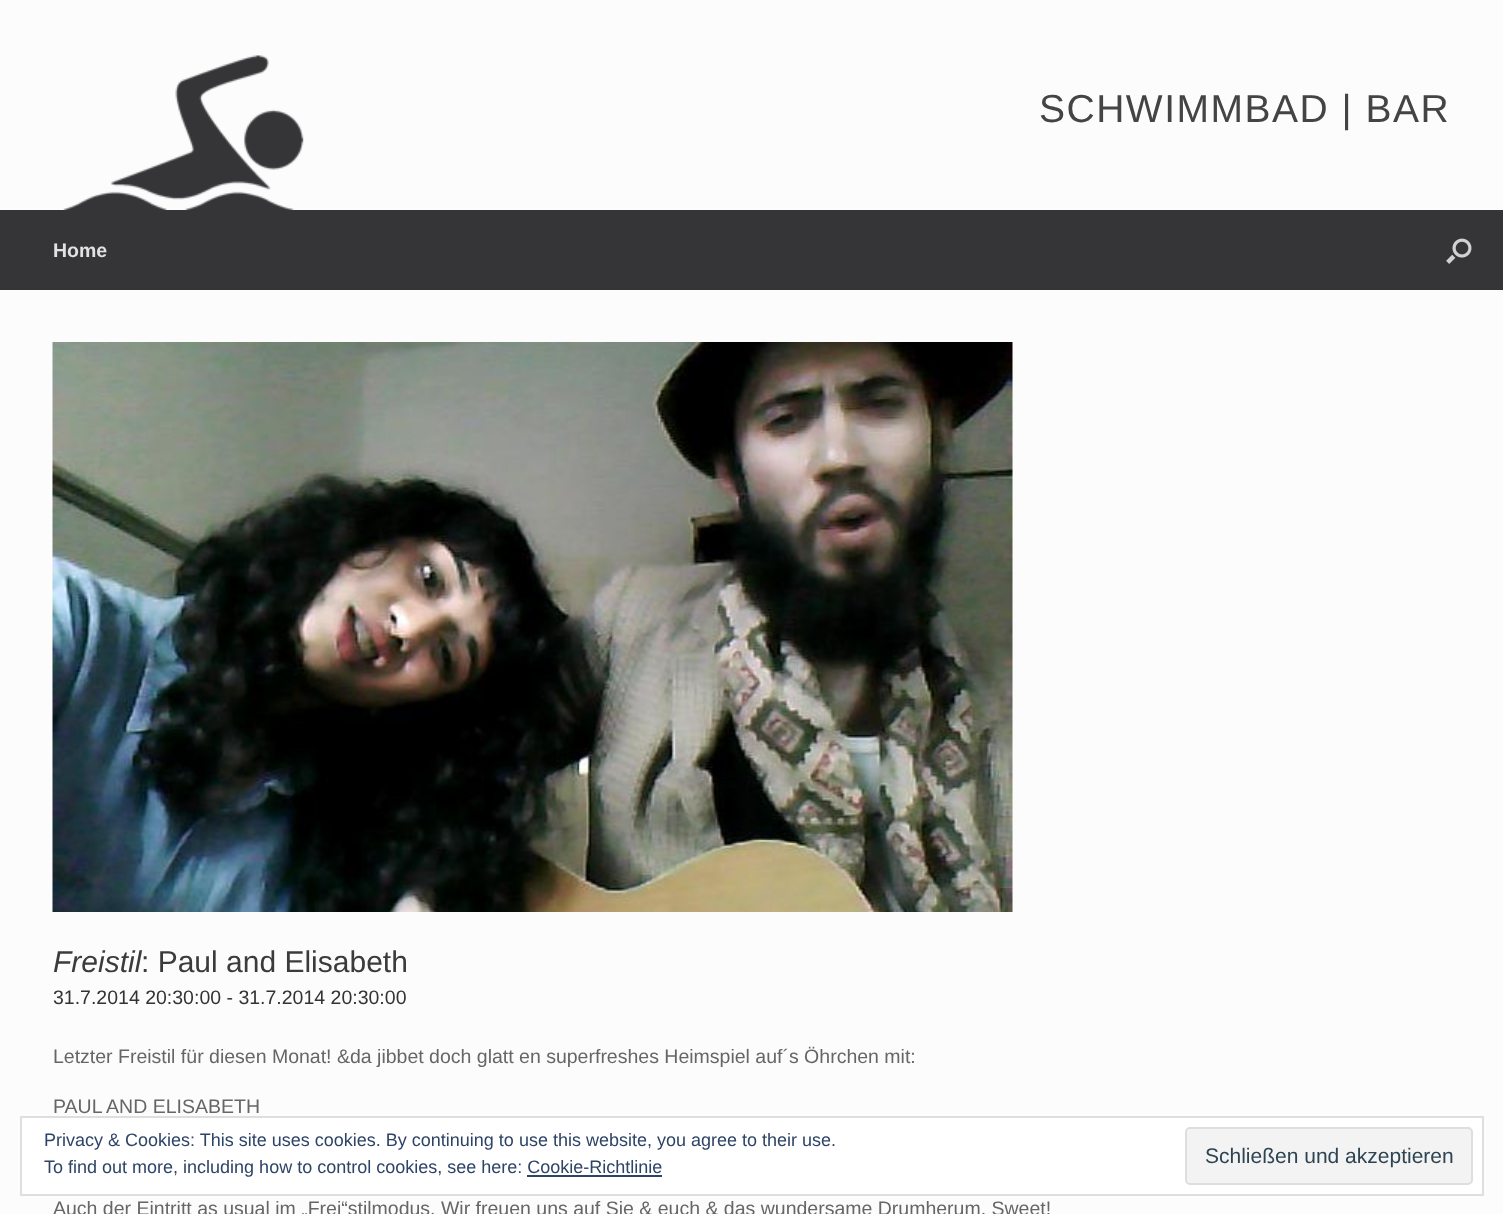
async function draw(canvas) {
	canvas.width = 1503;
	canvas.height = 1214;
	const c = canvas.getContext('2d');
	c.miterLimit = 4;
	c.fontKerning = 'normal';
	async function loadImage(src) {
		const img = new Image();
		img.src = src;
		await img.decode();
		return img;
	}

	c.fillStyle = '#fcfcfc';
	c.fillRect(0, 0, 1503, 1214);
	c.drawImage(await loadImage('img1.png'), 63, 55, 241, 155);
	c.letterSpacing = '1.5px';
	c.font = '39px Liberation Sans';
	c.fillStyle = '#444';
	c.fillText('SCHWIMMBAD | BAR', 1039, 122);
	c.fillStyle = '#353538';
	c.fillRect(0, 210, 1503, 80);
	c.letterSpacing = '0px';
	c.font = 'bold 19.5px Liberation Sans';
	c.fillStyle = '#e2e2e2';
	c.fillText('Home', 53, 257);
	c.drawImage(await loadImage('img2.png'), 1446, 238, 26, 26);
	c.drawImage(await loadImage('img3.png'), 52, 342, 961, 570);
	c.font = 'italic 30px Liberation Sans';
	c.fillStyle = '#3b3b3b';
	c.fillText('Freistil', 53, 972);
	c.font = '30px Liberation Sans';
	c.fillText(': Paul and Elisabeth', 141, 972);
	c.font = '19.5px Liberation Sans';
	c.fillStyle = '#333';
	c.fillText('31.7.2014 20:30:00 - 31.7.2014 20:30:00', 53, 1004);
	c.fillStyle = '#666';
	for (const [text, x, y] of [
		['Letzter Freistil für diesen Monat! &da jibbet doch glatt en superfreshes Heimspiel auf´s Öhrchen mit:', 53, 1063],
		['PAUL AND ELISABETH', 53, 1113],
		['Auch der Eintritt as usual im „Frei“stilmodus. Wir freuen uns auf Sie & euch & das wundersame Drumherum. Sweet!', 53, 1215],
	]) {
		c.fillText(text, x, y);
	}
	c.fillStyle = '#fff';
	c.beginPath();
	c.rect(21, 1117, 1462, 78);
	c.fill();
	c.strokeStyle = '#dedede';
	c.lineWidth = 2;
	c.stroke();
	c.font = '18px Liberation Sans';
	c.fillStyle = '#2e4467';
	c.fillText('Privacy & Cookies: This site uses cookies. By continuing to use this website, you agree to their use.', 44, 1146);
	c.fillText('To find out more, including how to control cookies, see here: Cookie-Richtlinie', 44, 1173);
	c.fillStyle = '#f3f3f3';
	c.beginPath();
	c.roundRect(1186, 1128, 286, 56, 4);
	c.fill();
	c.stroke();
	c.font = '21px Liberation Sans';
	c.fillStyle = '#2e4453';
	c.fillText('Schließen und akzeptieren', 1205, 1163);
	c.fillStyle = '#2e4467';
	c.fillRect(527, 1175, 135, 2);
}

draw(document.querySelector('canvas'));
